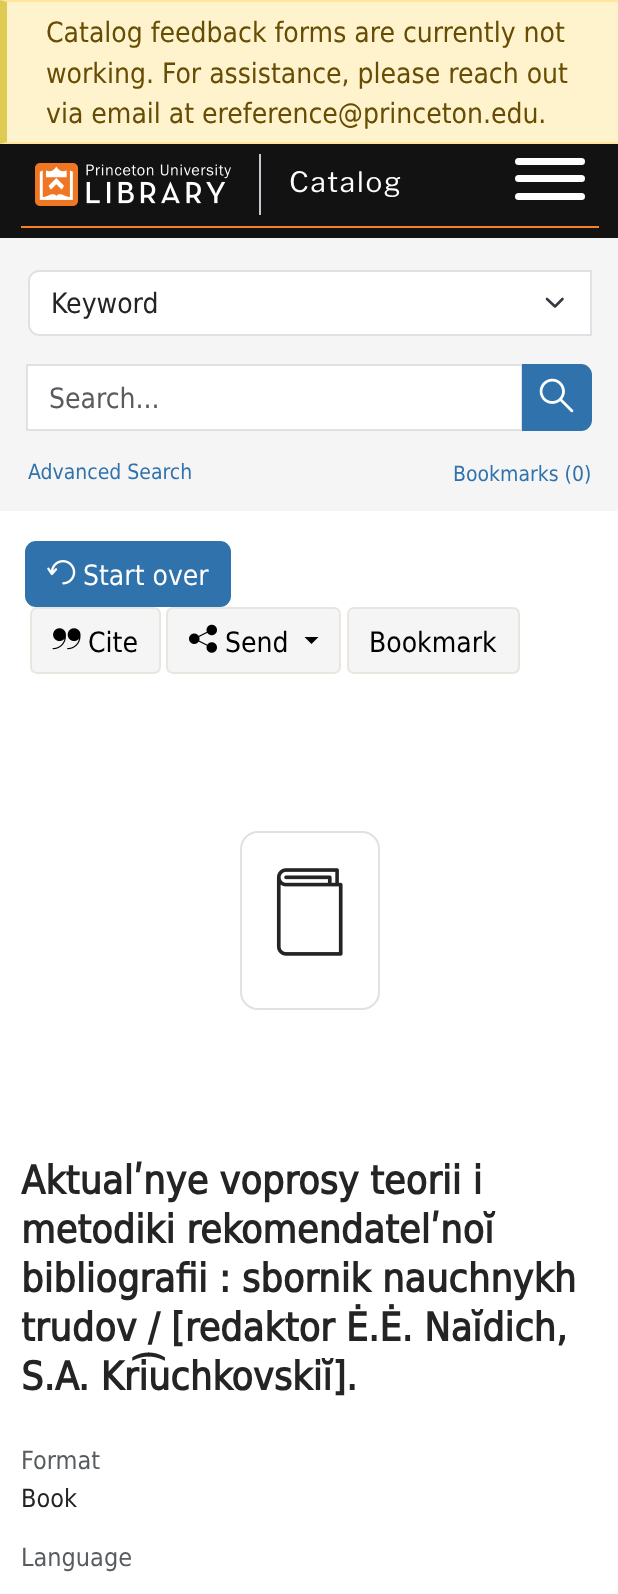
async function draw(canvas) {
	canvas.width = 618;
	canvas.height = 1594;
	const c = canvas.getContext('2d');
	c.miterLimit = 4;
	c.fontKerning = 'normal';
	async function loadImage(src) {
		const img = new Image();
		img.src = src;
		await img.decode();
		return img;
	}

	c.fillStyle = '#f5f5f5';
	c.fillRect(0, 0, 618, 1594);
	c.fillStyle = '#fff3cd';
	c.fillRect(7, 2, 611, 140);
	c.fillStyle = '#ffe69c';
	c.beginPath();
	c.moveTo(0, 0);
	c.lineTo(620, 0);
	c.lineTo(618, 2);
	c.lineTo(7, 2);
	c.closePath();
	c.fill();
	c.beginPath();
	c.moveTo(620, 144);
	c.lineTo(0, 144);
	c.lineTo(7, 142);
	c.lineTo(618, 142);
	c.closePath();
	c.fill();
	c.fillStyle = '#e0cb52';
	c.beginPath();
	c.moveTo(0, 144);
	c.lineTo(0, 0);
	c.lineTo(7, 2);
	c.lineTo(7, 142);
	c.closePath();
	c.fill();
	c.font = '28px DejaVu Sans';
	c.fillStyle = '#664d03';
	for (const [text, x, y] of [
		['Catalog feedback forms are currently not', 46, 42],
		['working. For assistance, please reach out', 46, 83],
		['via email at ereference@princeton.edu.', 46, 123],
	]) {
		c.fillText(text, x, y);
	}
	c.fillStyle = '#121212';
	c.fillRect(0, 144, 618, 94);
	c.fillStyle = '#f58025';
	c.fillRect(21, 226, 578, 2);
	c.drawImage(await loadImage('img1.png'), 35, 163, 196, 43);
	c.fillStyle = '#c5c8ce';
	c.fillRect(259, 154, 2, 61);
	c.letterSpacing = '1.75px';
	c.font = '28px Libre Franklin';
	c.fillStyle = '#fff';
	c.fillText('Catalog', 289, 192);
	c.beginPath();
	c.roundRect(515, 175, 70, 7, 3.5);
	c.fill();
	c.beginPath();
	c.roundRect(515, 158, 70, 7, 3.5);
	c.fill();
	c.beginPath();
	c.roundRect(515, 193, 70, 7, 3.5);
	c.fill();
	c.beginPath();
	c.roundRect(28, 270, 564, 66, [11, 0, 0, 11]);
	c.fill();
	c.beginPath();
	c.moveTo(547, 299);
	c.lineTo(555, 306.5);
	c.lineTo(562.5, 299);
	c.strokeStyle = '#343a40';
	c.lineWidth = 2.6;
	c.lineCap = 'round';
	c.lineJoin = 'round';
	c.stroke();
	c.beginPath();
	c.roundRect(29, 271, 562, 64, [10, 0, 0, 10]);
	c.strokeStyle = '#dee2e6';
	c.lineWidth = 2;
	c.lineJoin = 'miter';
	c.stroke();
	c.letterSpacing = '0px';
	c.font = '28px DejaVu Sans';
	c.fillStyle = '#242424';
	c.fillText('Keyword', 51, 313);
	c.fillStyle = '#fff';
	c.beginPath();
	c.rect(27, 365, 495, 65);
	c.fill();
	c.stroke();
	c.fillStyle = '#595c5f';
	c.fillText('Search...', 49, 408);
	c.fillStyle = '#3072ab';
	c.beginPath();
	c.roundRect(523, 365, 68, 65, [0, 10, 10, 0]);
	c.fill();
	c.strokeStyle = '#3072ab';
	c.stroke();
	c.drawImage(await loadImage('img2.png'), 539, 378, 35, 35);
	c.font = '21px DejaVu Sans';
	c.fillText('Advanced Search', 28, 479);
	c.fillText('Bookmarks (0)', 453, 481);
	c.fillStyle = '#fff';
	c.fillRect(0, 511, 618, 1083);
	c.fillStyle = '#3072ab';
	c.beginPath();
	c.roundRect(26, 542, 204, 64, 10);
	c.fill();
	c.stroke();
	c.drawImage(await loadImage('img3.png'), 47, 560, 29, 25);
	c.font = '28px DejaVu Sans';
	c.fillStyle = '#fff';
	c.fillText('Start over', 83, 585);
	c.fillStyle = '#f5f5f5';
	c.beginPath();
	c.roundRect(31, 608, 129, 65, 6);
	c.fill();
	c.strokeStyle = '#e8e6df';
	c.stroke();
	c.drawImage(await loadImage('img4.png'), 52, 628, 29, 22);
	c.fillStyle = '#000';
	c.fillText('Cite', 88, 652);
	c.fillStyle = '#f5f5f5';
	c.beginPath();
	c.roundRect(167, 608, 173, 65, 6);
	c.fill();
	c.stroke();
	c.drawImage(await loadImage('img5.png'), 189, 624, 28, 29);
	c.fillStyle = '#000';
	c.fillText('Send', 225, 652);
	c.beginPath();
	c.moveTo(304.5, 637);
	c.lineTo(318.5, 637);
	c.lineTo(311.5, 644);
	c.closePath();
	c.fill();
	c.fillStyle = '#f5f5f5';
	c.beginPath();
	c.roundRect(348, 608, 171, 65, 6);
	c.fill();
	c.stroke();
	c.fillStyle = '#000';
	c.fillText('Bookmark', 369, 652);
	c.beginPath();
	c.roundRect(241, 832, 138, 177, 17);
	c.strokeStyle = '#e1e1e1';
	c.stroke();
	c.drawImage(await loadImage('img6.png'), 276, 868, 67, 88);
	c.font = 'bold 39.25px DejaVu Sans';
	c.fillStyle = '#242424';
	for (const [text, x, y] of [
		['Aktualʹnye voprosy teorii i', 21, 1194],
		['metodiki rekomendatelʹnoĭ', 21, 1243],
		['bibliografii : sbornik nauchnykh', 21, 1292],
		['trudov / [redaktor Ė.Ė. Naĭdich,', 21, 1341],
		['S.A. Kri︠u︡chkovskiĭ].', 21, 1390],
	]) {
		c.fillText(text, x, y);
	}
	c.font = '25px DejaVu Sans';
	c.fillStyle = '#595c5f';
	c.fillText('Format', 21, 1469);
	c.fillStyle = '#242424';
	c.fillText('Book', 21, 1507);
	c.fillStyle = '#595c5f';
	c.fillText('Language', 21, 1566);
}

draw(document.querySelector('canvas'));
